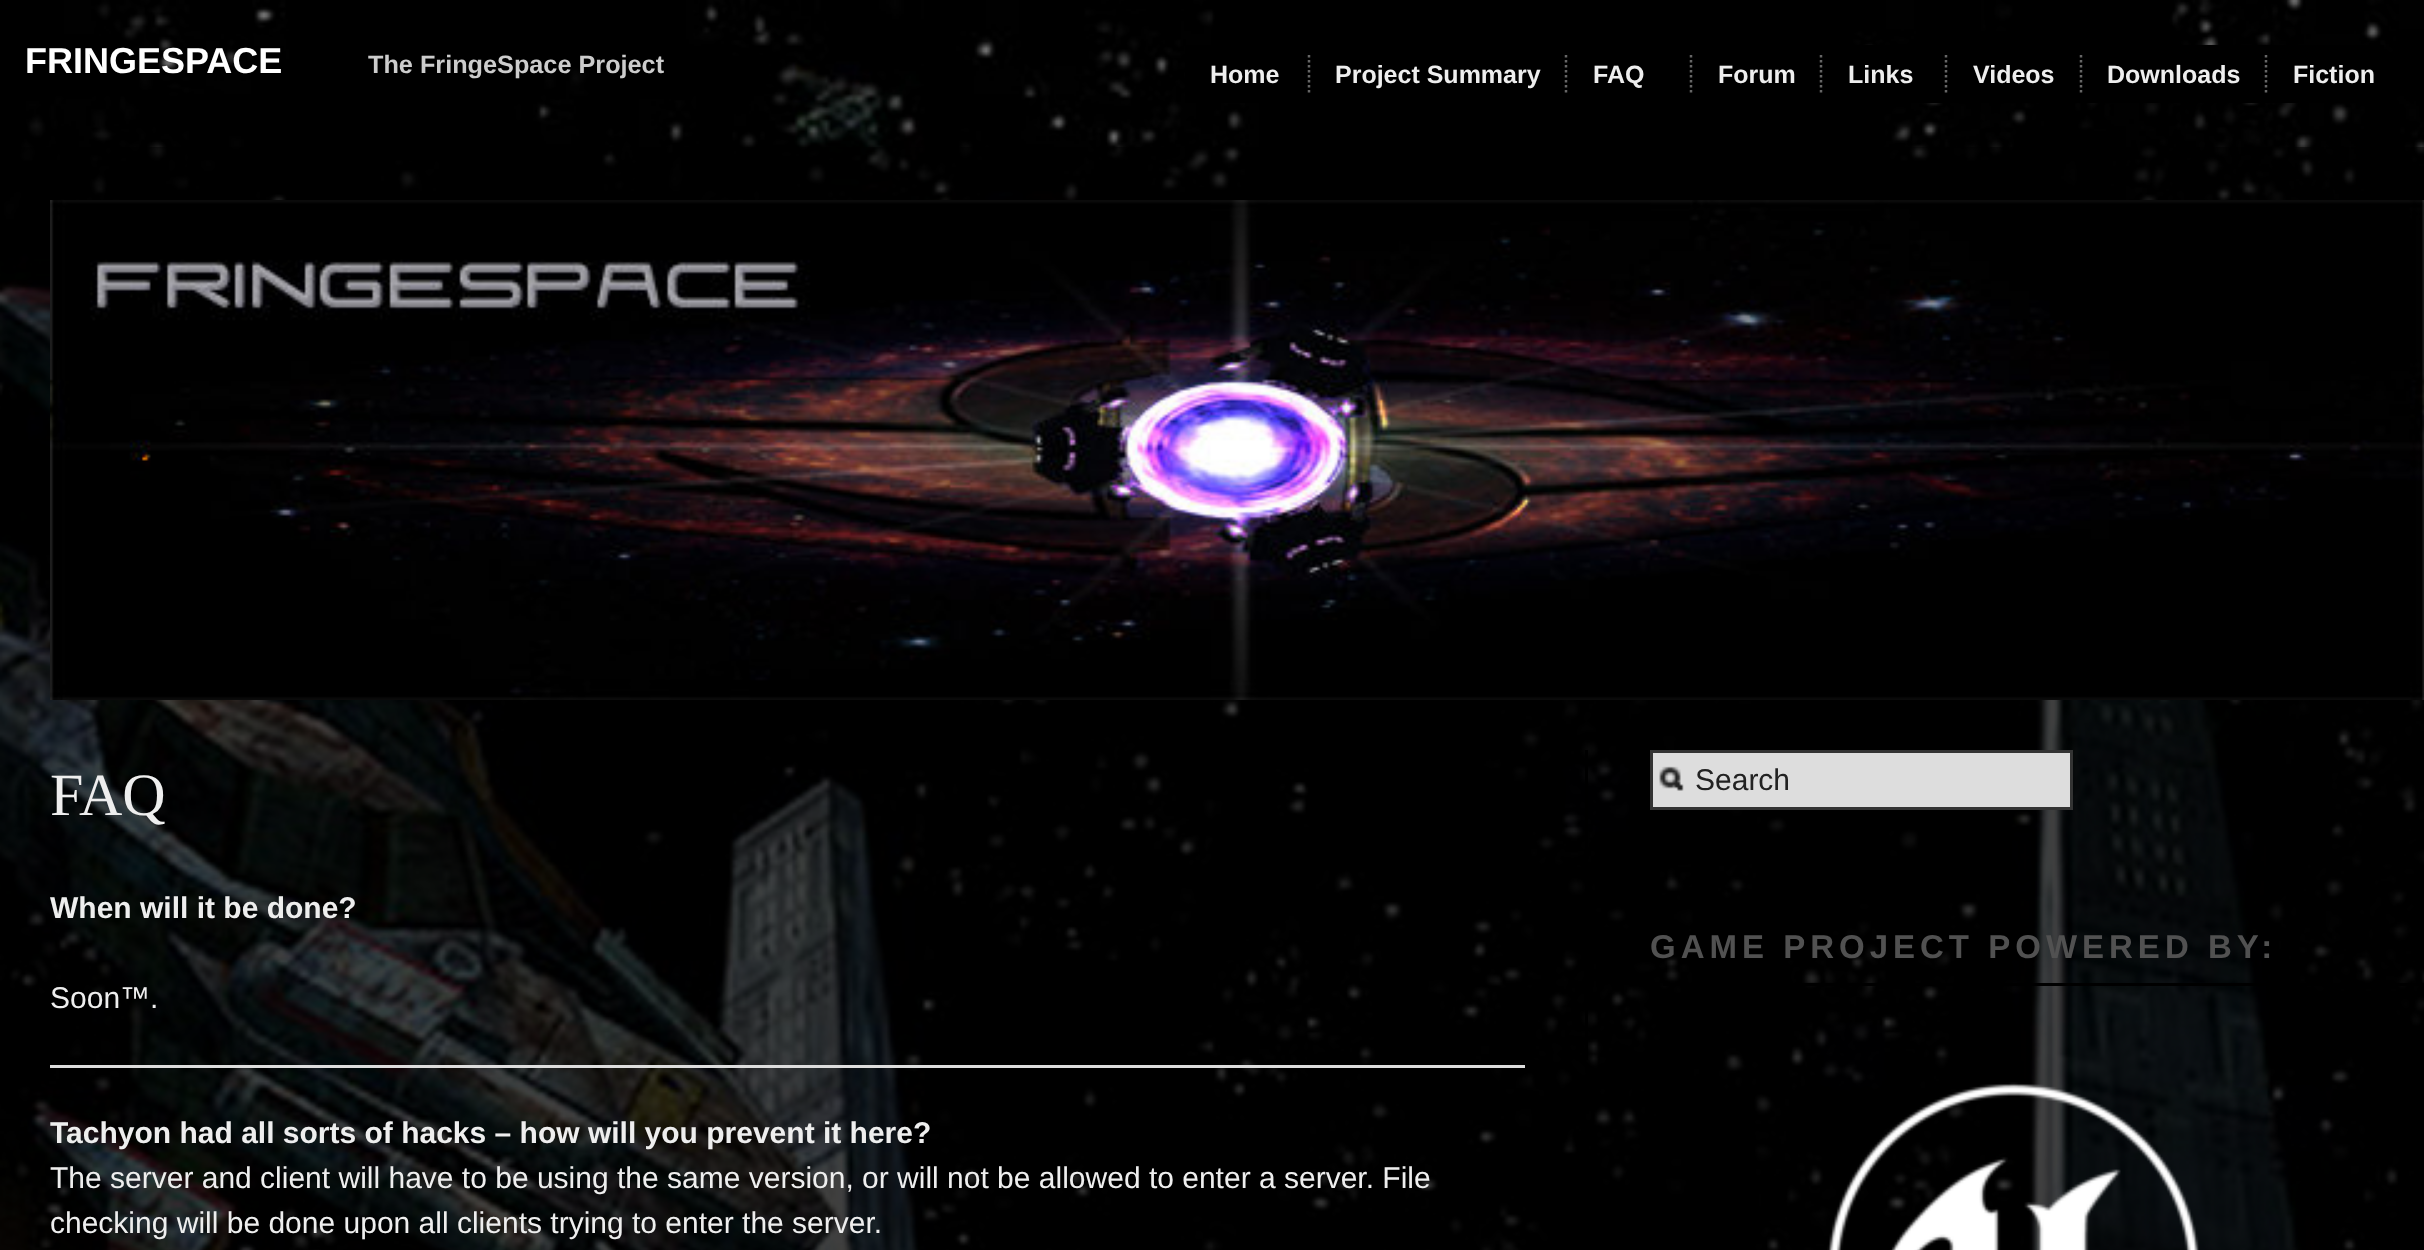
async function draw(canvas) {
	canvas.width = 2424;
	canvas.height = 1250;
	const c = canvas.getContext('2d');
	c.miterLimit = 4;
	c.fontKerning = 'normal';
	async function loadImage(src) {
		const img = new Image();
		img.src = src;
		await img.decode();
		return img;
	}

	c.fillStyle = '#fff';
	c.fillRect(0, 0, 2424, 1250);
	c.drawImage(await loadImage('img1.png'), 0, 0, 2424, 1250);
	c.font = 'bold 36px Liberation Sans';
	c.fillText('FRINGESPACE', 25, 73);
	c.font = 'bold 25.25px Liberation Sans';
	c.fillStyle = '#ccc';
	c.fillText('The FringeSpace Project', 368, 73);
	c.fillStyle = '#000';
	c.fillRect(1185, 45, 1199, 58);
	c.beginPath();
	c.moveTo(1309, 55);
	c.lineTo(1309, 92.5);
	c.strokeStyle = '#666';
	c.lineWidth = 2.5;
	c.setLineDash([2.5, 2.5]);
	c.stroke();
	c.font = 'bold 25px Liberation Sans';
	c.fillStyle = '#eee';
	c.fillText('Home', 1210, 83);
	c.beginPath();
	c.moveTo(1566, 55);
	c.lineTo(1566, 92.5);
	c.stroke();
	c.fillText('Project Summary', 1335, 83);
	c.beginPath();
	c.moveTo(1691, 55);
	c.lineTo(1691, 92.5);
	c.stroke();
	c.fillText('FAQ', 1593, 83);
	c.beginPath();
	c.moveTo(1821, 55);
	c.lineTo(1821, 92.5);
	c.stroke();
	c.fillText('Forum', 1718, 83);
	c.beginPath();
	c.moveTo(1946, 55);
	c.lineTo(1946, 92.5);
	c.stroke();
	c.fillText('Links', 1848, 83);
	c.beginPath();
	c.moveTo(2081, 55);
	c.lineTo(2081, 92.5);
	c.stroke();
	c.fillText('Videos', 1973, 83);
	c.beginPath();
	c.moveTo(2266, 55);
	c.lineTo(2266, 92.5);
	c.stroke();
	c.fillText('Downloads', 2107, 83);
	c.fillText('Fiction', 2293, 83);
	c.fillStyle = '#00000080';
	c.fillRect(0, 147, 2424, 1103);
	c.drawImage(await loadImage('img2.png'), 50, 200, 2374, 500);
	c.fillStyle = '#000';
	c.fillRect(1585, 750, 3, 310);
	c.font = '60px Liberation Serif';
	c.fillStyle = '#eee';
	c.fillText('FAQ', 50, 815);
	c.font = 'bold 30px Liberation Sans';
	c.fillText('When will it be done?', 50, 918);
	c.font = '30px Liberation Sans';
	c.fillText('Soon™.', 50, 1008);
	c.fillStyle = '#ddd';
	c.fillRect(50, 1065, 1475, 3);
	c.font = 'bold 30px Liberation Sans';
	c.fillStyle = '#eee';
	c.fillText('Tachyon had all sorts of hacks – how will you prevent it here?', 50, 1143);
	c.font = '30px Liberation Sans';
	c.fillText('The server and client will have to be using the same version, or will not be allowed to enter a server. File', 50, 1188);
	c.fillText('checking will be done upon all clients trying to enter the server.', 50, 1233);
	c.fillStyle = '#ddd';
	c.fillRect(1653, 753, 417, 54);
	c.drawImage(await loadImage('img3.png'), 1659, 766, 25, 25);
	c.strokeStyle = '#333';
	c.lineWidth = 3;
	c.setLineDash([]);
	c.strokeRect(1651.5, 751.5, 420, 57);
	c.fillStyle = '#222';
	c.fillText('Search', 1695, 790);
	c.fillStyle = '#000';
	c.fillRect(1663, 983, 761, 3);
	c.letterSpacing = '5px';
	c.font = 'bold 33px Liberation Sans';
	c.fillStyle = '#515151';
	c.fillText('GAME PROJECT POWERED BY:', 1650, 958);
	c.drawImage(await loadImage('img4.png'), 1827, 1082, 372, 168);
}

draw(document.querySelector('canvas'));
